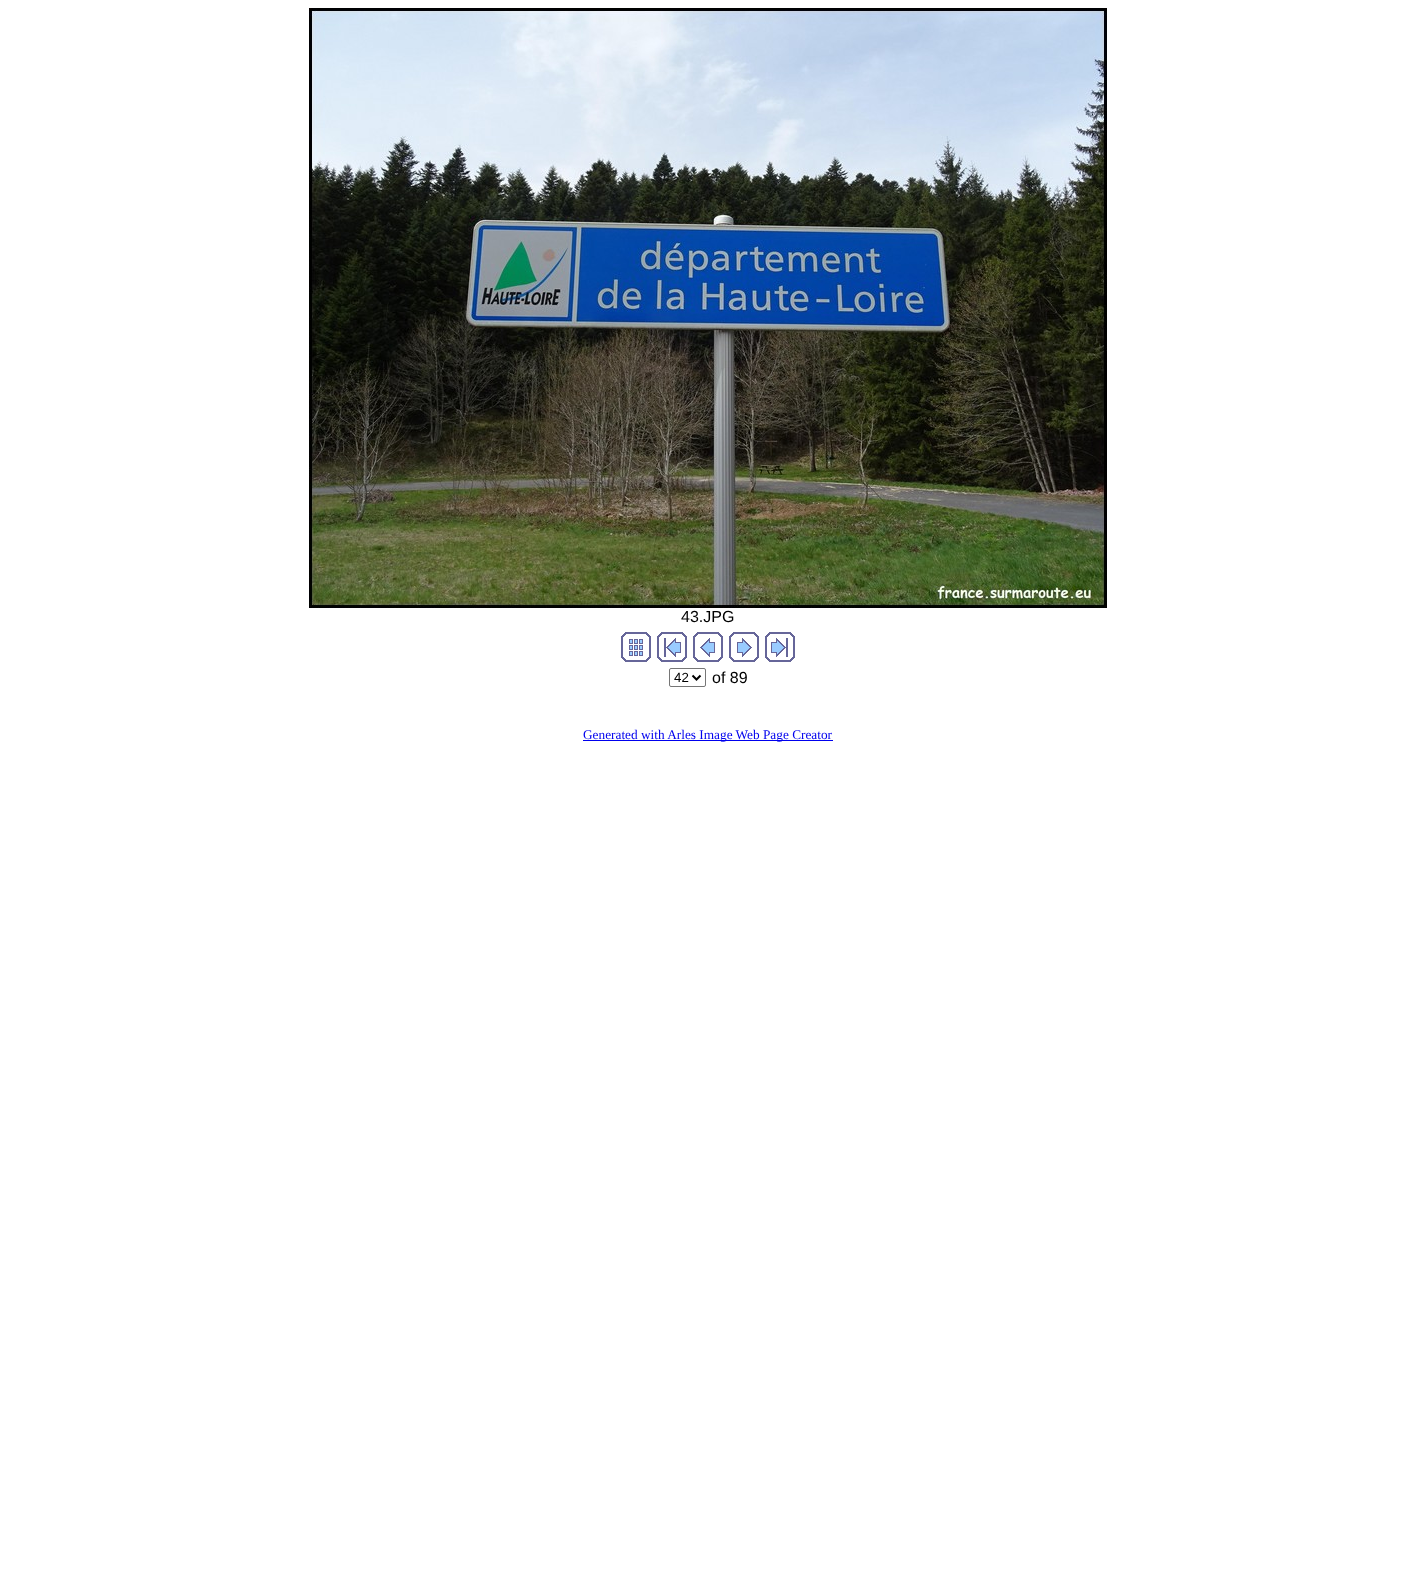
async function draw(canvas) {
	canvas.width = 1416;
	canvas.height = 1581;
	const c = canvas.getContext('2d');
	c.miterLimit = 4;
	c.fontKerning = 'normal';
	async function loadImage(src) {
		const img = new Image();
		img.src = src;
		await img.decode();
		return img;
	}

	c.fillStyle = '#fff';
	c.fillRect(0, 0, 1416, 1581);
	c.drawImage(await loadImage('img1.png'), 309, 8, 798, 600);
	c.font = '16px Liberation Sans';
	c.fillStyle = '#000';
	c.fillText('43.JPG', 681, 622);
	c.drawImage(await loadImage('img2.png'), 621, 632, 30, 30);
	c.drawImage(await loadImage('img3.png'), 657, 632, 30, 30);
	c.drawImage(await loadImage('img4.png'), 693, 632, 30, 30);
	c.drawImage(await loadImage('img5.png'), 729, 632, 30, 30);
	c.drawImage(await loadImage('img6.png'), 765, 632, 30, 30);
	c.beginPath();
	c.roundRect(669.5, 668.5, 36, 18, 1.5);
	c.strokeStyle = '#767676';
	c.stroke();
	c.beginPath();
	c.moveTo(692.5, 675.5);
	c.lineTo(696.5, 679.5);
	c.lineTo(700.5, 675.5);
	c.strokeStyle = '#000';
	c.lineWidth = 2;
	c.stroke();
	c.font = '13.3px Liberation Sans';
	c.fillText('42', 674, 682);
	c.font = '16px Liberation Sans';
	c.fillText('of 89', 712, 683);
	c.fillStyle = '#00e';
	c.fillRect(583, 740, 250, 1);
	c.font = '13.3px Liberation Serif';
	c.fillText('Generated with Arles Image Web Page Creator', 583, 739);
}

draw(document.querySelector('canvas'));
